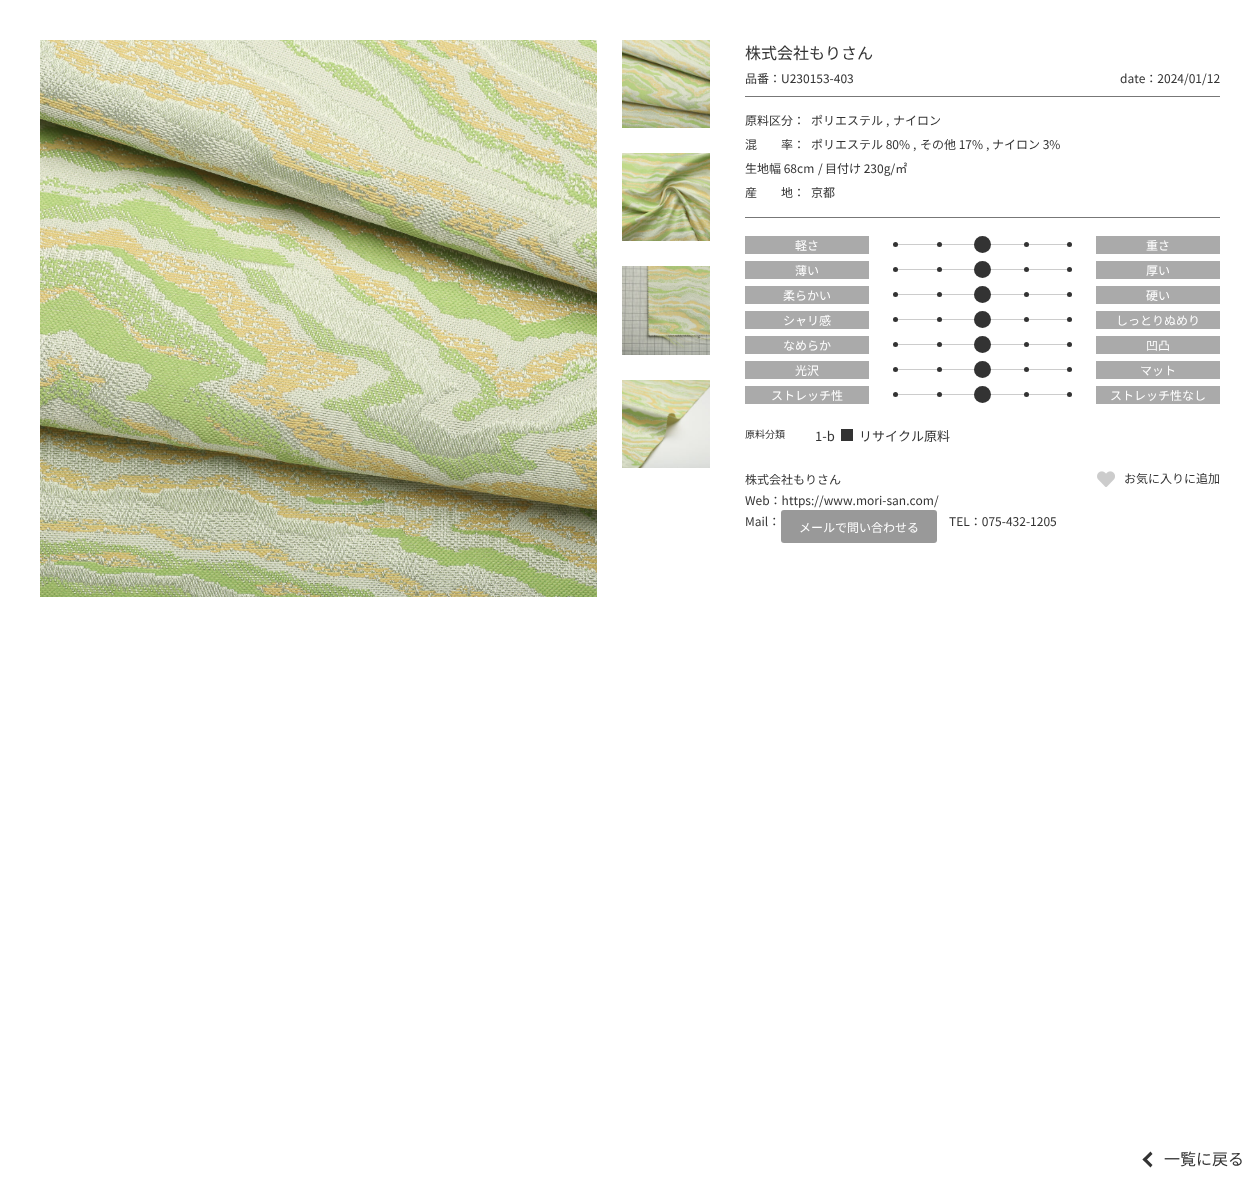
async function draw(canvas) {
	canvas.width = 1260;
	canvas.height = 1178;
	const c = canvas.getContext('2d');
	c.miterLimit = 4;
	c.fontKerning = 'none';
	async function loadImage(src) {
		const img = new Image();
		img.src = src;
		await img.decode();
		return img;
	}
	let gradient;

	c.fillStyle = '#fff';
	c.fillRect(0, 0, 1260, 1178);
	c.drawImage(await loadImage('img1.png'), 40, 40, 557, 557);
	c.drawImage(await loadImage('img2.png'), 622, 40, 88, 88);
	c.drawImage(await loadImage('img3.png'), 622, 153, 88, 88);
	c.drawImage(await loadImage('img4.png'), 622, 266, 88, 89);
	c.drawImage(await loadImage('img5.png'), 622, 380, 88, 88);
	c.font = '16px Noto Sans JP';
	c.fillStyle = '#333';
	c.fillText('株式会社もりさん', 745, 59);
	c.fillStyle = '#777';
	c.fillRect(745, 96, 475, 1);
	c.font = '12px Noto Sans JP';
	c.fillStyle = '#333';
	c.fillText('品番：U230153-403', 745, 83);
	c.fillText('date：2024/01/12', 1120, 83);
	c.fillStyle = '#777';
	c.fillRect(745, 217, 475, 1);
	c.fillStyle = '#333';
	for (const [text, x, y] of [
		['原料区分：', 745, 125],
		['ポリエステル', 811, 125],
		[',', 886, 125],
		['ナイロン', 893, 125],
		['混　　率：', 745, 149],
		['ポリエステル 80%', 811, 149],
		[',', 913, 149],
		['その他 17%', 920, 149],
		[',', 986, 149],
		['ナイロン 3%', 992, 149],
		['生地幅 68cm', 745, 173],
		['/', 818, 173],
		['目付け 230g/㎡', 825, 173],
		['産　　地：', 745, 197],
		['京都', 811, 197],
	]) {
		c.fillText(text, x, y);
	}
	c.fillStyle = '#aaa';
	c.fillRect(745, 236, 124, 18);
	c.fillStyle = '#fff';
	c.fillText('軽さ', 795, 250);
	gradient = c.createLinearGradient(983, 234, 983, 255);
	gradient.addColorStop(0, '#fff');
	gradient.addColorStop(0.48, '#fff');
	gradient.addColorStop(0.48, '#ccc');
	gradient.addColorStop(0.53, '#ccc');
	gradient.addColorStop(0.53, '#fff');
	gradient.addColorStop(1, '#fff');
	c.fillStyle = gradient;
	c.fillRect(893, 244, 179, 1);
	c.fillStyle = '#333';
	c.beginPath();
	c.arc(895.5, 244.5, 2.5, 0, 2 * Math.PI);
	c.fill();
	c.beginPath();
	c.arc(939.5, 244.5, 2.5, 0, 2 * Math.PI);
	c.fill();
	c.beginPath();
	c.arc(982.5, 244.5, 8.5, 0, 2 * Math.PI);
	c.fill();
	c.beginPath();
	c.arc(1026.5, 244.5, 2.5, 0, 2 * Math.PI);
	c.fill();
	c.beginPath();
	c.arc(1069.5, 244.5, 2.5, 0, 2 * Math.PI);
	c.fill();
	c.fillStyle = '#aaa';
	c.fillRect(1096, 236, 124, 18);
	c.fillStyle = '#fff';
	c.fillText('重さ', 1146, 250);
	c.fillStyle = '#aaa';
	c.fillRect(745, 261, 124, 18);
	c.fillStyle = '#fff';
	c.fillText('薄い', 795, 275);
	gradient = c.createLinearGradient(983, 259, 983, 280);
	gradient.addColorStop(0, '#fff');
	gradient.addColorStop(0.48, '#fff');
	gradient.addColorStop(0.48, '#ccc');
	gradient.addColorStop(0.53, '#ccc');
	gradient.addColorStop(0.53, '#fff');
	gradient.addColorStop(1, '#fff');
	c.fillStyle = gradient;
	c.fillRect(893, 269, 179, 1);
	c.fillStyle = '#333';
	c.beginPath();
	c.arc(895.5, 269.5, 2.5, 0, 2 * Math.PI);
	c.fill();
	c.beginPath();
	c.arc(939.5, 269.5, 2.5, 0, 2 * Math.PI);
	c.fill();
	c.beginPath();
	c.arc(982.5, 269.5, 8.5, 0, 2 * Math.PI);
	c.fill();
	c.beginPath();
	c.arc(1026.5, 269.5, 2.5, 0, 2 * Math.PI);
	c.fill();
	c.beginPath();
	c.arc(1069.5, 269.5, 2.5, 0, 2 * Math.PI);
	c.fill();
	c.fillStyle = '#aaa';
	c.fillRect(1096, 261, 124, 18);
	c.fillStyle = '#fff';
	c.fillText('厚い', 1146, 275);
	c.fillStyle = '#aaa';
	c.fillRect(745, 286, 124, 18);
	c.fillStyle = '#fff';
	c.fillText('柔らかい', 783, 300);
	gradient = c.createLinearGradient(983, 284, 983, 305);
	gradient.addColorStop(0, '#fff');
	gradient.addColorStop(0.48, '#fff');
	gradient.addColorStop(0.48, '#ccc');
	gradient.addColorStop(0.53, '#ccc');
	gradient.addColorStop(0.53, '#fff');
	gradient.addColorStop(1, '#fff');
	c.fillStyle = gradient;
	c.fillRect(893, 294, 179, 1);
	c.fillStyle = '#333';
	c.beginPath();
	c.arc(895.5, 294.5, 2.5, 0, 2 * Math.PI);
	c.fill();
	c.beginPath();
	c.arc(939.5, 294.5, 2.5, 0, 2 * Math.PI);
	c.fill();
	c.beginPath();
	c.arc(982.5, 294.5, 8.5, 0, 2 * Math.PI);
	c.fill();
	c.beginPath();
	c.arc(1026.5, 294.5, 2.5, 0, 2 * Math.PI);
	c.fill();
	c.beginPath();
	c.arc(1069.5, 294.5, 2.5, 0, 2 * Math.PI);
	c.fill();
	c.fillStyle = '#aaa';
	c.fillRect(1096, 286, 124, 18);
	c.fillStyle = '#fff';
	c.fillText('硬い', 1146, 300);
	c.fillStyle = '#aaa';
	c.fillRect(745, 311, 124, 18);
	c.fillStyle = '#fff';
	c.fillText('シャリ感', 783, 325);
	gradient = c.createLinearGradient(983, 309, 983, 330);
	gradient.addColorStop(0, '#fff');
	gradient.addColorStop(0.48, '#fff');
	gradient.addColorStop(0.48, '#ccc');
	gradient.addColorStop(0.53, '#ccc');
	gradient.addColorStop(0.53, '#fff');
	gradient.addColorStop(1, '#fff');
	c.fillStyle = gradient;
	c.fillRect(893, 319, 179, 1);
	c.fillStyle = '#333';
	c.beginPath();
	c.arc(895.5, 319.5, 2.5, 0, 2 * Math.PI);
	c.fill();
	c.beginPath();
	c.arc(939.5, 319.5, 2.5, 0, 2 * Math.PI);
	c.fill();
	c.beginPath();
	c.arc(982.5, 319.5, 8.5, 0, 2 * Math.PI);
	c.fill();
	c.beginPath();
	c.arc(1026.5, 319.5, 2.5, 0, 2 * Math.PI);
	c.fill();
	c.beginPath();
	c.arc(1069.5, 319.5, 2.5, 0, 2 * Math.PI);
	c.fill();
	c.fillStyle = '#aaa';
	c.fillRect(1096, 311, 124, 18);
	c.fillStyle = '#fff';
	c.fillText('しっとりぬめり', 1116, 325);
	c.fillStyle = '#aaa';
	c.fillRect(745, 336, 124, 18);
	c.fillStyle = '#fff';
	c.fillText('なめらか', 783, 350);
	gradient = c.createLinearGradient(983, 334, 983, 355);
	gradient.addColorStop(0, '#fff');
	gradient.addColorStop(0.48, '#fff');
	gradient.addColorStop(0.48, '#ccc');
	gradient.addColorStop(0.53, '#ccc');
	gradient.addColorStop(0.53, '#fff');
	gradient.addColorStop(1, '#fff');
	c.fillStyle = gradient;
	c.fillRect(893, 344, 179, 1);
	c.fillStyle = '#333';
	c.beginPath();
	c.arc(895.5, 344.5, 2.5, 0, 2 * Math.PI);
	c.fill();
	c.beginPath();
	c.arc(939.5, 344.5, 2.5, 0, 2 * Math.PI);
	c.fill();
	c.beginPath();
	c.arc(982.5, 344.5, 8.5, 0, 2 * Math.PI);
	c.fill();
	c.beginPath();
	c.arc(1026.5, 344.5, 2.5, 0, 2 * Math.PI);
	c.fill();
	c.beginPath();
	c.arc(1069.5, 344.5, 2.5, 0, 2 * Math.PI);
	c.fill();
	c.fillStyle = '#aaa';
	c.fillRect(1096, 336, 124, 18);
	c.fillStyle = '#fff';
	c.fillText('凹凸', 1146, 350);
	c.fillStyle = '#aaa';
	c.fillRect(745, 361, 124, 18);
	c.fillStyle = '#fff';
	c.fillText('光沢', 795, 375);
	gradient = c.createLinearGradient(983, 359, 983, 380);
	gradient.addColorStop(0, '#fff');
	gradient.addColorStop(0.48, '#fff');
	gradient.addColorStop(0.48, '#ccc');
	gradient.addColorStop(0.53, '#ccc');
	gradient.addColorStop(0.53, '#fff');
	gradient.addColorStop(1, '#fff');
	c.fillStyle = gradient;
	c.fillRect(893, 369, 179, 1);
	c.fillStyle = '#333';
	c.beginPath();
	c.arc(895.5, 369.5, 2.5, 0, 2 * Math.PI);
	c.fill();
	c.beginPath();
	c.arc(939.5, 369.5, 2.5, 0, 2 * Math.PI);
	c.fill();
	c.beginPath();
	c.arc(982.5, 369.5, 8.5, 0, 2 * Math.PI);
	c.fill();
	c.beginPath();
	c.arc(1026.5, 369.5, 2.5, 0, 2 * Math.PI);
	c.fill();
	c.beginPath();
	c.arc(1069.5, 369.5, 2.5, 0, 2 * Math.PI);
	c.fill();
	c.fillStyle = '#aaa';
	c.fillRect(1096, 361, 124, 18);
	c.fillStyle = '#fff';
	c.fillText('マット', 1140, 375);
	c.fillStyle = '#aaa';
	c.fillRect(745, 386, 124, 18);
	c.fillStyle = '#fff';
	c.fillText('ストレッチ性', 771, 400);
	gradient = c.createLinearGradient(983, 384, 983, 405);
	gradient.addColorStop(0, '#fff');
	gradient.addColorStop(0.48, '#fff');
	gradient.addColorStop(0.48, '#ccc');
	gradient.addColorStop(0.53, '#ccc');
	gradient.addColorStop(0.53, '#fff');
	gradient.addColorStop(1, '#fff');
	c.fillStyle = gradient;
	c.fillRect(893, 394, 179, 1);
	c.fillStyle = '#333';
	c.beginPath();
	c.arc(895.5, 394.5, 2.5, 0, 2 * Math.PI);
	c.fill();
	c.beginPath();
	c.arc(939.5, 394.5, 2.5, 0, 2 * Math.PI);
	c.fill();
	c.beginPath();
	c.arc(982.5, 394.5, 8.5, 0, 2 * Math.PI);
	c.fill();
	c.beginPath();
	c.arc(1026.5, 394.5, 2.5, 0, 2 * Math.PI);
	c.fill();
	c.beginPath();
	c.arc(1069.5, 394.5, 2.5, 0, 2 * Math.PI);
	c.fill();
	c.fillStyle = '#aaa';
	c.fillRect(1096, 386, 124, 18);
	c.fillStyle = '#fff';
	c.fillText('ストレッチ性なし', 1110, 400);
	c.font = '10px Noto Sans JP';
	c.fillStyle = '#333';
	c.fillText('原料分類', 745, 438);
	c.font = '13px Noto Sans JP';
	c.fillText('1-b', 815, 441);
	c.fillRect(841, 429, 12, 12);
	c.fillText('リサイクル原料', 859, 441);
	c.font = '12px Noto Sans JP';
	for (const [text, x, y] of [
		['株式会社もりさん', 745, 484],
		['Web：https://www.mori-san.com/', 745, 505],
		['Mail：', 745, 526],
	]) {
		c.fillText(text, x, y);
	}
	c.fillStyle = '#999';
	c.beginPath();
	c.roundRect(781, 510, 156, 33, 3);
	c.fill();
	c.fillStyle = '#fff';
	c.fillText('メールで問い合わせる', 799, 532);
	c.fillStyle = '#333';
	c.fillText('TEL：075-432-1205', 949, 526);
	c.drawImage(await loadImage('img6.png'), 1097, 471, 18, 16);
	c.fillText('お気に入りに追加', 1124, 483);
	c.beginPath();
	c.moveTo(1142.5, 1159.5);
	c.lineTo(1150.5, 1151.5);
	c.lineTo(1152.5, 1154);
	c.lineTo(1145, 1161.5);
	c.closePath();
	c.fill();
	c.beginPath();
	c.moveTo(1142.5, 1159.5);
	c.lineTo(1145, 1157.5);
	c.lineTo(1152.5, 1165);
	c.lineTo(1150.5, 1167.5);
	c.closePath();
	c.fill();
	c.font = '16px Noto Sans JP';
	c.fillText('一覧に戻る', 1164, 1165);
}

draw(document.querySelector('canvas'));
